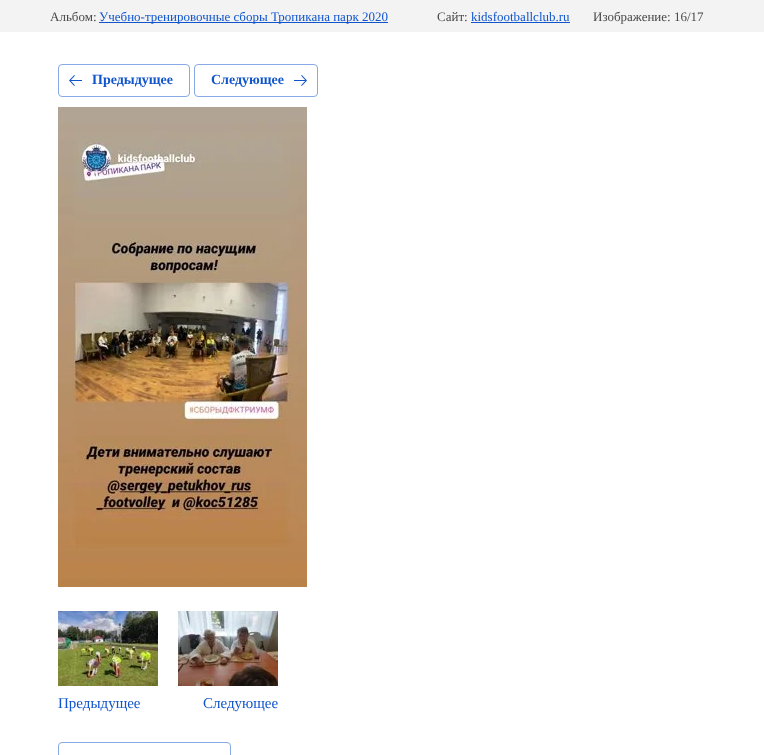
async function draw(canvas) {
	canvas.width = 764;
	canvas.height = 755;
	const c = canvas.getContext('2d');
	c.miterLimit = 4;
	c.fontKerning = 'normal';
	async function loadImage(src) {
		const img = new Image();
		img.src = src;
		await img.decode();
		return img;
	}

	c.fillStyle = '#fff';
	c.fillRect(0, 0, 764, 755);
	c.fillStyle = '#f3f3f3';
	c.fillRect(0, 0, 764, 32);
	c.font = '13px Liberation Serif';
	c.fillStyle = '#484848';
	c.fillText('Альбом:', 50, 21);
	c.fillStyle = '#15c';
	c.fillRect(99, 22, 289, 1);
	c.fillText('Учебно-тренировочные сборы Тропикана парк 2020', 99, 21);
	c.fillStyle = '#484848';
	c.fillText('Сайт:', 437, 21);
	c.fillStyle = '#15c';
	c.fillText('kidsfootballclub.ru', 471, 21);
	c.fillRect(471, 22, 99, 1);
	c.fillStyle = '#484848';
	c.fillText('Изображение: 16/17', 593, 21);
	c.beginPath();
	c.roundRect(58.5, 64.5, 131, 32, 3.5);
	c.strokeStyle = '#88aae6';
	c.stroke();
	c.drawImage(await loadImage('img1.png'), 69, 75, 13, 11);
	c.font = 'bold 14px Liberation Serif';
	c.fillStyle = '#15c';
	c.fillText('Предыдущее', 92, 84);
	c.beginPath();
	c.roundRect(194.5, 64.5, 123, 32, 3.5);
	c.stroke();
	c.fillText('Следующее', 211, 84);
	c.drawImage(await loadImage('img2.png'), 294, 75, 13, 11);
	c.drawImage(await loadImage('img3.png'), 58, 107, 249, 480);
	c.drawImage(await loadImage('img4.png'), 58, 611, 100, 75);
	c.font = '15px Liberation Serif';
	c.fillText('Предыдущее', 58, 708);
	c.drawImage(await loadImage('img5.png'), 178, 611, 100, 75);
	c.fillText('Следующее', 203, 708);
	c.beginPath();
	c.roundRect(58.5, 742.5, 172, 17, 3.5);
	c.stroke();
}

draw(document.querySelector('canvas'));
